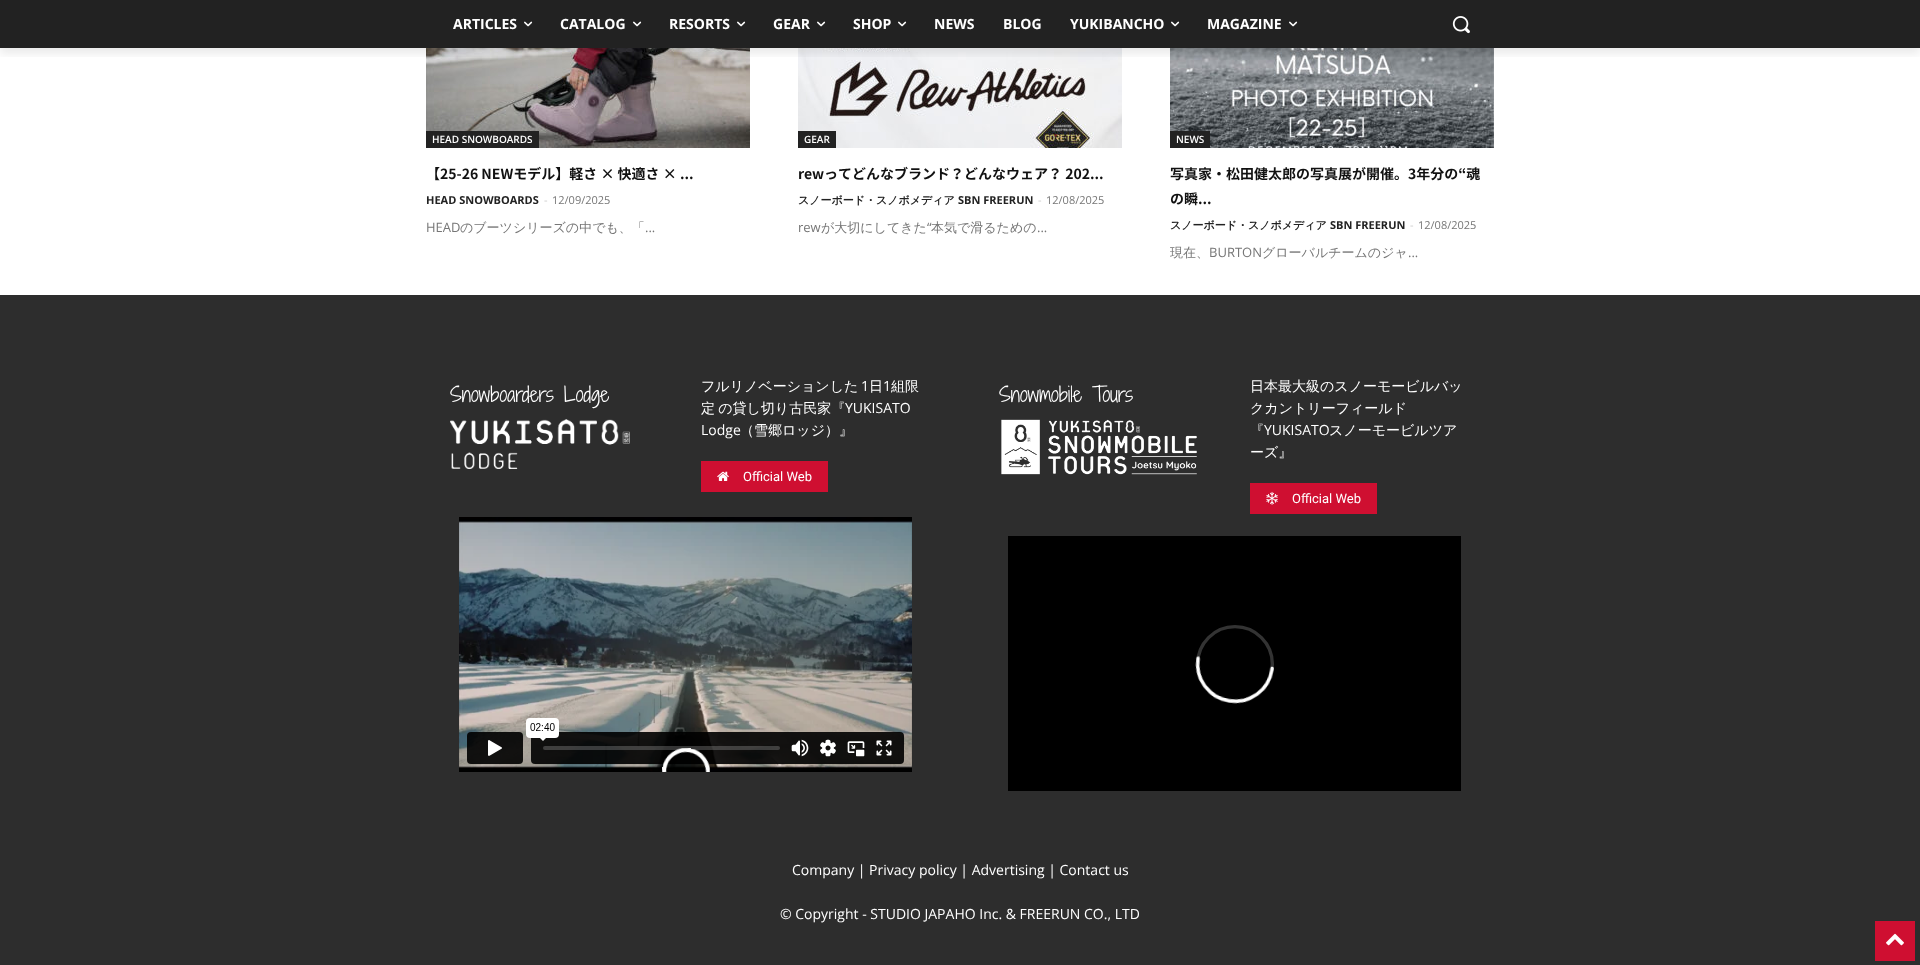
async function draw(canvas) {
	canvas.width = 1920;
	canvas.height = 965;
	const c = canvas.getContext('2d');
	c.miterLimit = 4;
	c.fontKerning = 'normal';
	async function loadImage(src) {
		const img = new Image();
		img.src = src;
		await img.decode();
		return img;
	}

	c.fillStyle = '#fff';
	c.fillRect(0, 0, 1920, 965);
	c.fillStyle = '#222';
	c.fillRect(0, 0, 1920, 48);
	c.drawImage(await loadImage('img3.png'), 426, 48, 324, 100);
	c.drawImage(await loadImage('img4.png'), 798, 48, 324, 100);
	c.drawImage(await loadImage('img5.png'), 1170, 48, 324, 100);
	c.save();
	c.beginPath();
	c.rect(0, 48, 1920, 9);
	c.clip();
	c.fillStyle = '#00000014';
	c.filter = 'blur(4px)';
	c.beginPath();
	c.rect(0, 6, 1920, 48);
	c.fill();
	c.filter = 'none';
	c.restore();
	c.font = 'bold 14px Open Sans';
	c.fillStyle = '#fff';
	c.fillText('ARTICLES', 453, 29);
	c.drawImage(await loadImage('img1.png'), 524, 21, 9, 6);
	c.fillText('CATALOG', 560, 29);
	c.drawImage(await loadImage('img1.png'), 633, 21, 9, 6);
	c.fillText('RESORTS', 669, 29);
	c.drawImage(await loadImage('img1.png'), 737, 21, 9, 6);
	c.fillText('GEAR', 773, 29);
	c.drawImage(await loadImage('img1.png'), 817, 21, 9, 6);
	c.fillText('SHOP', 853, 29);
	c.drawImage(await loadImage('img1.png'), 898, 21, 9, 6);
	for (const [text, x, y] of [
		['NEWS', 934, 29],
		['BLOG', 1003, 29],
		['YUKIBANCHO', 1070, 29],
	]) {
		c.fillText(text, x, y);
	}
	c.drawImage(await loadImage('img1.png'), 1171, 21, 9, 6);
	c.fillText('MAGAZINE', 1207, 29);
	c.drawImage(await loadImage('img1.png'), 1289, 21, 9, 6);
	c.drawImage(await loadImage('img2.png'), 1452, 16, 18, 18);
	c.fillStyle = '#222';
	c.fillRect(426, 131, 113, 17);
	c.font = '600 10px Open Sans';
	c.fillStyle = '#fff';
	c.fillText('HEAD SNOWBOARDS', 432, 143);
	c.font = 'bold 14px Noto Sans JP';
	c.fillStyle = '#111';
	c.fillText('【25-26 NEWモデル】軽さ × 快適さ × ...', 426, 179);
	c.font = 'bold 11px Open Sans';
	c.fillStyle = '#222';
	c.fillText('HEAD SNOWBOARDS', 426, 204);
	c.font = '11px Open Sans';
	c.fillStyle = '#ccc';
	c.fillText('-', 544, 204);
	c.fillStyle = '#767676';
	c.fillText('12/09/2025', 552, 204);
	c.font = '13px Open Sans';
	c.fillText('HEAD', 426, 232);
	c.font = '500 13px WenQuanYi Zen Hei';
	c.fillText('のブーツシリーズの中でも、「', 460, 232);
	c.font = '13px Open Sans';
	c.fillText('...', 645, 232);
	c.fillStyle = '#222';
	c.fillRect(798, 131, 38, 17);
	c.font = '600 10px Open Sans';
	c.fillStyle = '#fff';
	c.fillText('GEAR', 804, 143);
	c.font = 'bold 14px Noto Sans JP';
	c.fillStyle = '#111';
	c.fillText('rewってどんなブランド？どんなウェア？ 202...', 798, 179);
	c.font = 'bold 11px WenQuanYi Zen Hei';
	c.fillStyle = '#222';
	c.fillText('スノーボード・スノボメディア', 798, 204);
	c.font = 'bold 11px Open Sans';
	c.fillText('SBN FREERUN', 958, 204);
	c.font = '11px Open Sans';
	c.fillStyle = '#ccc';
	c.fillText('-', 1038, 204);
	c.fillStyle = '#767676';
	c.fillText('12/08/2025', 1046, 204);
	c.font = '13px Open Sans';
	c.fillText('rew', 798, 232);
	c.font = '500 13px WenQuanYi Zen Hei';
	c.fillText('が大切にしてきた', 821, 232);
	c.font = '13px Open Sans';
	c.fillText('“', 927, 232);
	c.font = '500 13px WenQuanYi Zen Hei';
	c.fillText('本気で滑るための', 931, 232);
	c.font = '13px Open Sans';
	c.fillText('...', 1037, 232);
	c.fillStyle = '#222';
	c.fillRect(1170, 131, 40, 17);
	c.font = '600 10px Open Sans';
	c.fillStyle = '#fff';
	c.fillText('NEWS', 1176, 143);
	c.font = 'bold 14px Noto Sans JP';
	c.fillStyle = '#111';
	c.fillText('写真家・松田健太郎の写真展が開催。3年分の“魂', 1170, 179);
	c.fillText('の瞬...', 1170, 204);
	c.font = 'bold 11px WenQuanYi Zen Hei';
	c.fillStyle = '#222';
	c.fillText('スノーボード・スノボメディア', 1170, 229);
	c.font = 'bold 11px Open Sans';
	c.fillText('SBN FREERUN', 1330, 229);
	c.font = '11px Open Sans';
	c.fillStyle = '#ccc';
	c.fillText('-', 1410, 229);
	c.fillStyle = '#767676';
	c.fillText('12/08/2025', 1418, 229);
	c.font = '500 13px WenQuanYi Zen Hei';
	c.fillText('現在、', 1170, 257);
	c.font = '13px Open Sans';
	c.fillText('BURTON', 1209, 257);
	c.font = '500 13px WenQuanYi Zen Hei';
	c.fillText('グローバルチームのジャ', 1262, 257);
	c.font = '13px Open Sans';
	c.fillText('...', 1408, 257);
	c.fillStyle = '#2d2d2d';
	c.fillRect(0, 295, 1920, 670);
	c.font = '300 20px Shadows Into Light Two';
	c.fillStyle = '#fff';
	c.fillText('Snowboarders Lodge', 450, 402);
	c.drawImage(await loadImage('img6.png'), 450, 419, 180, 50);
	c.font = '500 14px WenQuanYi Zen Hei';
	c.fillText('フルリノベーションした', 701, 391);
	c.font = '14px Open Sans';
	c.fillText('1', 861, 391);
	c.font = '500 14px WenQuanYi Zen Hei';
	c.fillText('日', 869, 391);
	c.font = '14px Open Sans';
	c.fillText('1', 883, 391);
	c.font = '500 14px WenQuanYi Zen Hei';
	c.fillText('組限', 891, 391);
	c.wordSpacing = '-1px';
	c.fillText('定 の貸し切り古民家『', 701, 413);
	c.wordSpacing = '0px';
	c.font = '14px Open Sans';
	c.fillText('YUKISATO', 845, 413);
	c.fillText('Lodge', 701, 435);
	c.font = '500 14px WenQuanYi Zen Hei';
	c.fillText('（雪郷ロッジ）』', 740, 435);
	c.fillStyle = '#cf0f31';
	c.fillRect(701, 461, 127, 31);
	c.drawImage(await loadImage('img7.png'), 717, 471, 12, 10);
	c.font = '13px Roboto';
	c.fillStyle = '#fff';
	c.fillText('Official Web', 743, 481);
	c.drawImage(await loadImage('img8.png'), 459, 517, 453, 255);
	c.font = '300 20px Shadows Into Light Two';
	c.fillText('Snowmobile Tours', 999, 402);
	c.drawImage(await loadImage('img9.png'), 1001, 419, 196, 56);
	c.font = '500 14px WenQuanYi Zen Hei';
	for (const [text, x, y] of [
		['日本最⼤級のスノーモービルバッ', 1250, 391],
		['クカントリーフィールド', 1250, 413],
		['『', 1250, 435],
	]) {
		c.fillText(text, x, y);
	}
	c.font = '14px Open Sans';
	c.fillText('YUKISATO', 1264, 435);
	c.font = '500 14px WenQuanYi Zen Hei';
	c.fillText('スノーモービルツア', 1329, 435);
	c.fillText('ーズ』', 1250, 457);
	c.fillStyle = '#cf0f31';
	c.fillRect(1250, 483, 127, 31);
	c.drawImage(await loadImage('img10.png'), 1266, 491, 12, 14);
	c.font = '13px Roboto';
	c.fillStyle = '#fff';
	c.fillText('Official Web', 1292, 503);
	c.drawImage(await loadImage('img11.png'), 1008, 536, 453, 255);
	c.font = '14px Open Sans';
	c.fillText('Company | Privacy policy | Advertising | Contact us', 792, 875);
	c.fillText('© Copyright - STUDIO JAPAHO Inc. & FREERUN CO., LTD', 780, 919);
	c.fillStyle = '#cf0f31';
	c.fillRect(1875, 921, 40, 40);
	c.drawImage(await loadImage('img12.png'), 1886, 933, 18, 13);
}

draw(document.querySelector('canvas'));
